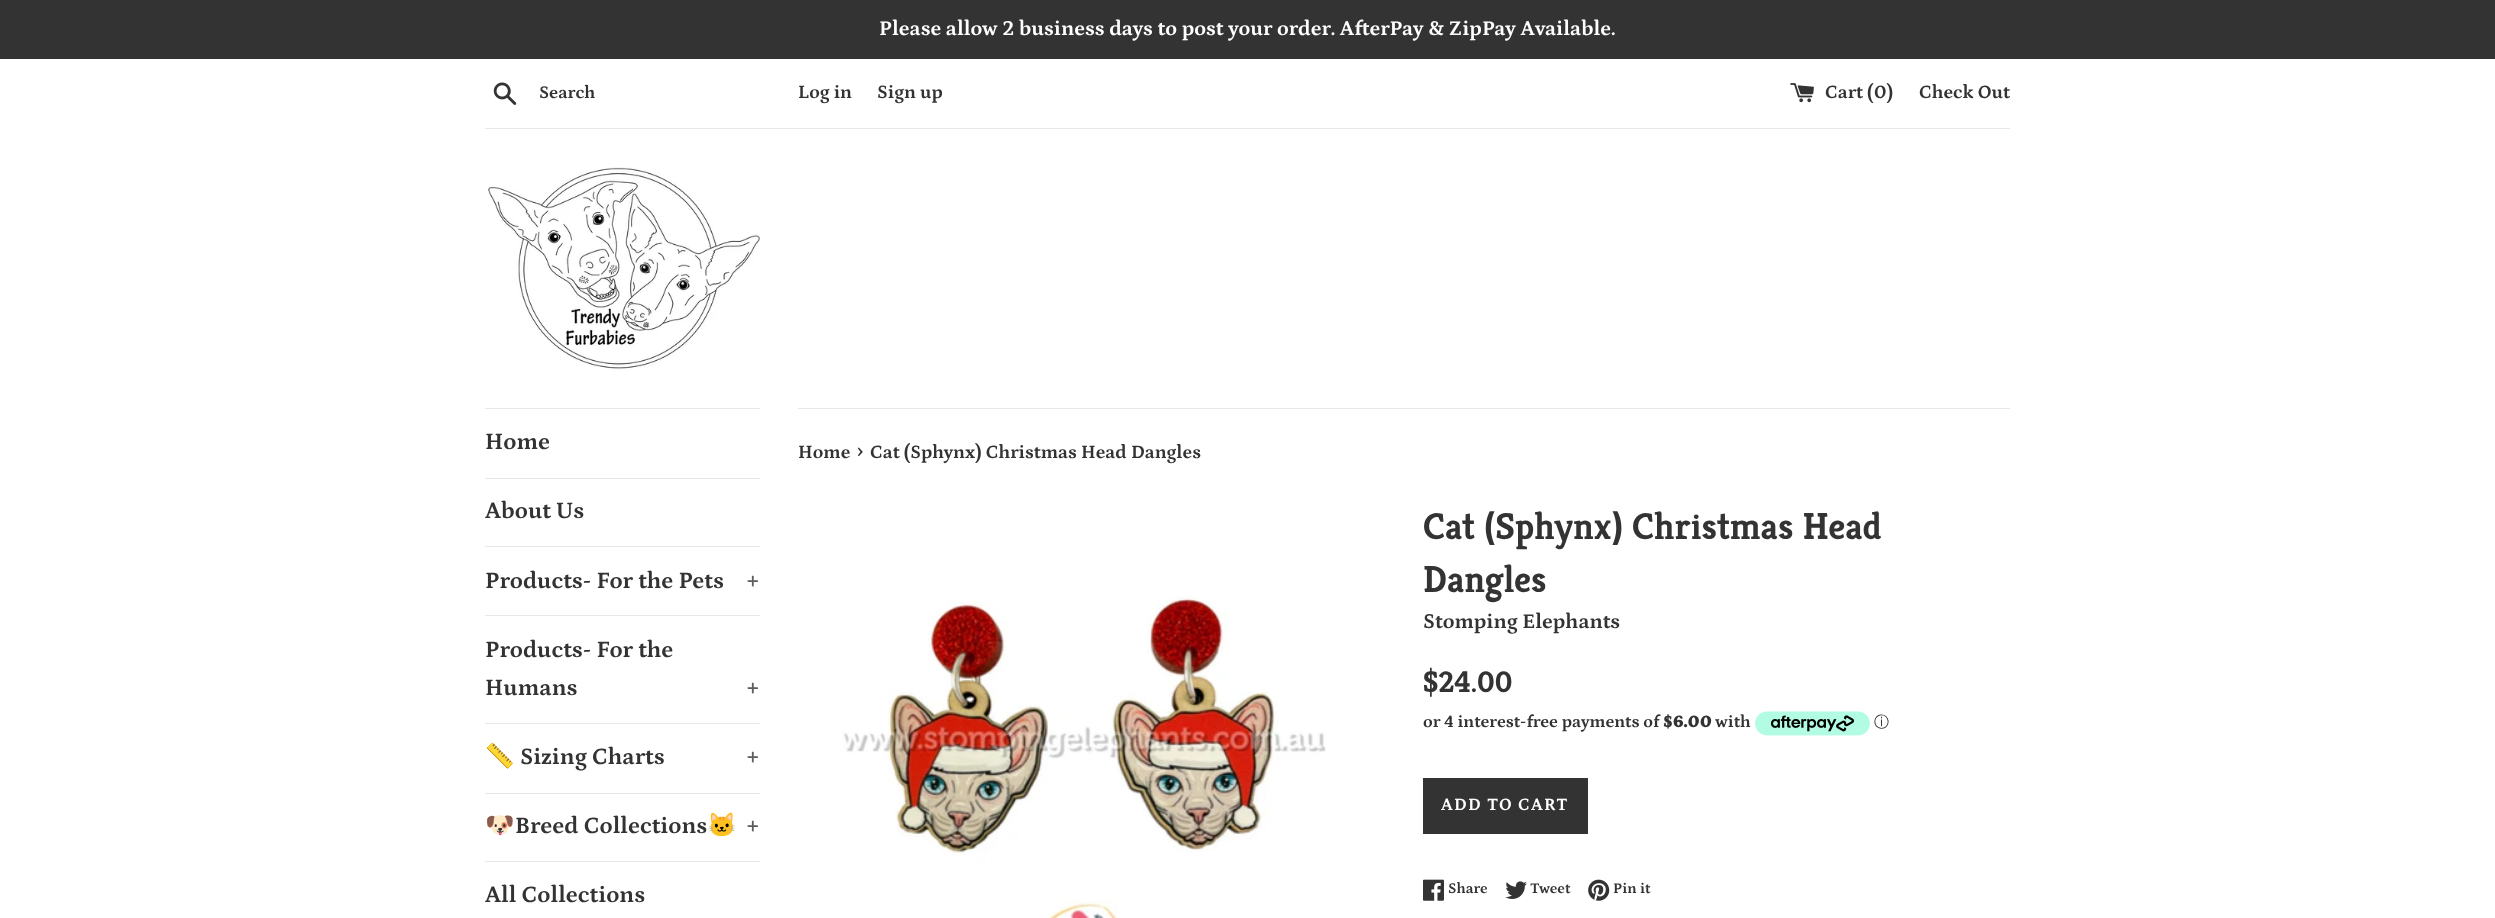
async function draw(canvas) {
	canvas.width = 2495;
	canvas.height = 918;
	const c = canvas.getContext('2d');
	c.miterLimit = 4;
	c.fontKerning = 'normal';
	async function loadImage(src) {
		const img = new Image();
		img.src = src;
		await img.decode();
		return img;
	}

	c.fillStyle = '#fff';
	c.fillRect(0, 0, 2495, 918);
	c.fillStyle = '#333';
	c.fillRect(0, 0, 2495, 59);
	c.font = 'bold 21.25px Petrona';
	c.fillStyle = '#fff';
	c.fillText('Please allow 2 business days to post your order. AfterPay & ZipPay Available.', 879, 35);
	c.drawImage(await loadImage('img1.png'), 493, 82, 24, 23);
	c.font = 'bold 18px Petrona';
	c.fillStyle = '#333';
	c.fillText('Search', 539, 98);
	c.font = 'bold 19.1px Petrona';
	c.fillText('Log in', 798, 98);
	c.fillText('Sign up', 877, 98);
	c.drawImage(await loadImage('img2.png'), 1790, 83, 24, 20);
	c.fillText('Cart (0)', 1825, 98);
	c.fillText('Check Out', 1919, 98);
	c.fillStyle = '#e8e8e8';
	c.fillRect(485, 128, 1525, 1);
	c.drawImage(await loadImage('img3.png'), 488, 167, 272, 203);
	c.fillRect(485, 408, 275, 1);
	c.fillRect(485, 478, 275, 1);
	c.font = 'bold 23.75px Petrona';
	c.fillStyle = '#333';
	c.fillText('Home', 485, 449);
	c.fillStyle = '#e8e8e8';
	c.fillRect(485, 546, 275, 1);
	c.fillStyle = '#333';
	c.fillText('About Us', 485, 518);
	c.fillStyle = '#e8e8e8';
	c.fillRect(485, 615, 275, 1);
	c.fillStyle = '#333';
	c.fillText('Products- For the Pets', 485, 588);
	c.fillStyle = '#5c5c5c';
	c.fillText('+', 746, 588);
	c.fillStyle = '#e8e8e8';
	c.fillRect(485, 723, 275, 1);
	c.fillStyle = '#333';
	c.fillText('Products- For the', 485, 657);
	c.fillText('Humans', 485, 695);
	c.fillStyle = '#5c5c5c';
	c.fillText('+', 746, 695);
	c.fillStyle = '#e8e8e8';
	c.fillRect(485, 793, 275, 1);
	c.font = 'bold 23.75px Noto Color Emoji';
	c.fillStyle = '#333';
	c.fillText('📏', 485, 764);
	c.font = 'bold 23.75px Petrona';
	c.fillText('Sizing Charts', 520, 764);
	c.fillStyle = '#5c5c5c';
	c.fillText('+', 746, 764);
	c.fillStyle = '#e8e8e8';
	c.fillRect(485, 861, 275, 1);
	c.font = 'bold 23.75px Noto Color Emoji';
	c.fillStyle = '#333';
	c.fillText('🐶', 485, 833);
	c.font = 'bold 23.75px Petrona';
	c.fillText('Breed Collections', 515, 833);
	c.font = 'bold 23.75px Noto Color Emoji';
	c.fillText('🐱', 707, 833);
	c.font = 'bold 23.75px Petrona';
	c.fillStyle = '#5c5c5c';
	c.fillText('+', 746, 833);
	c.fillStyle = '#333';
	c.fillText('All Collections', 485, 902);
	c.fillStyle = '#e8e8e8';
	c.fillRect(798, 408, 1212, 1);
	c.font = 'bold 19.1px Petrona';
	c.fillStyle = '#333';
	c.fillText('Home', 798, 458);
	c.font = 'bold 23px Petrona';
	c.fillText('›', 857, 458);
	c.font = 'bold 19.1px Petrona';
	c.fillText('Cat (Sphynx) Christmas Head Dangles', 870, 458);
	c.drawImage(await loadImage('img4.png'), 843, 596, 483, 322);
	c.font = 'bold 37.5px Kreon';
	c.fillText('Cat (Sphynx) Christmas Head', 1423, 539);
	c.fillText('Dangles', 1423, 592);
	c.font = 'bold 21.25px Petrona';
	c.fillText('Stomping Elephants', 1423, 628);
	c.font = 'bold 30px Kreon';
	c.fillText('$24.00', 1423, 692);
	c.font = 'bold 17.5px Petrona';
	c.fillText('or 4 interest-free payments of', 1423, 727);
	c.font = '900 17.5px Petrona';
	c.fillText('$6.00', 1663, 727);
	c.font = 'bold 17.5px Petrona';
	c.fillText('with', 1715, 727);
	c.drawImage(await loadImage('img5.png'), 1755, 711, 115, 25);
	c.font = '500 15px WenQuanYi Zen Hei';
	c.fillText('ⓘ', 1874, 727);
	c.fillRect(1423, 778, 165, 56);
	c.letterSpacing = '1.25px';
	c.font = 'bold 17.5px Petrona';
	c.fillStyle = '#fff';
	c.fillText('ADD TO CART', 1441, 810);
	c.drawImage(await loadImage('img6.png'), 1423, 879, 21, 22);
	c.letterSpacing = '0px';
	c.font = 'bold 15px Petrona';
	c.fillStyle = '#333';
	c.fillText('Share', 1448, 893);
	c.drawImage(await loadImage('img7.png'), 1505, 881, 22, 18);
	c.fillText('Tweet', 1530, 893);
	c.drawImage(await loadImage('img8.png'), 1588, 879, 22, 22);
	c.fillText('Pin it', 1613, 893);
}

draw(document.querySelector('canvas'));
